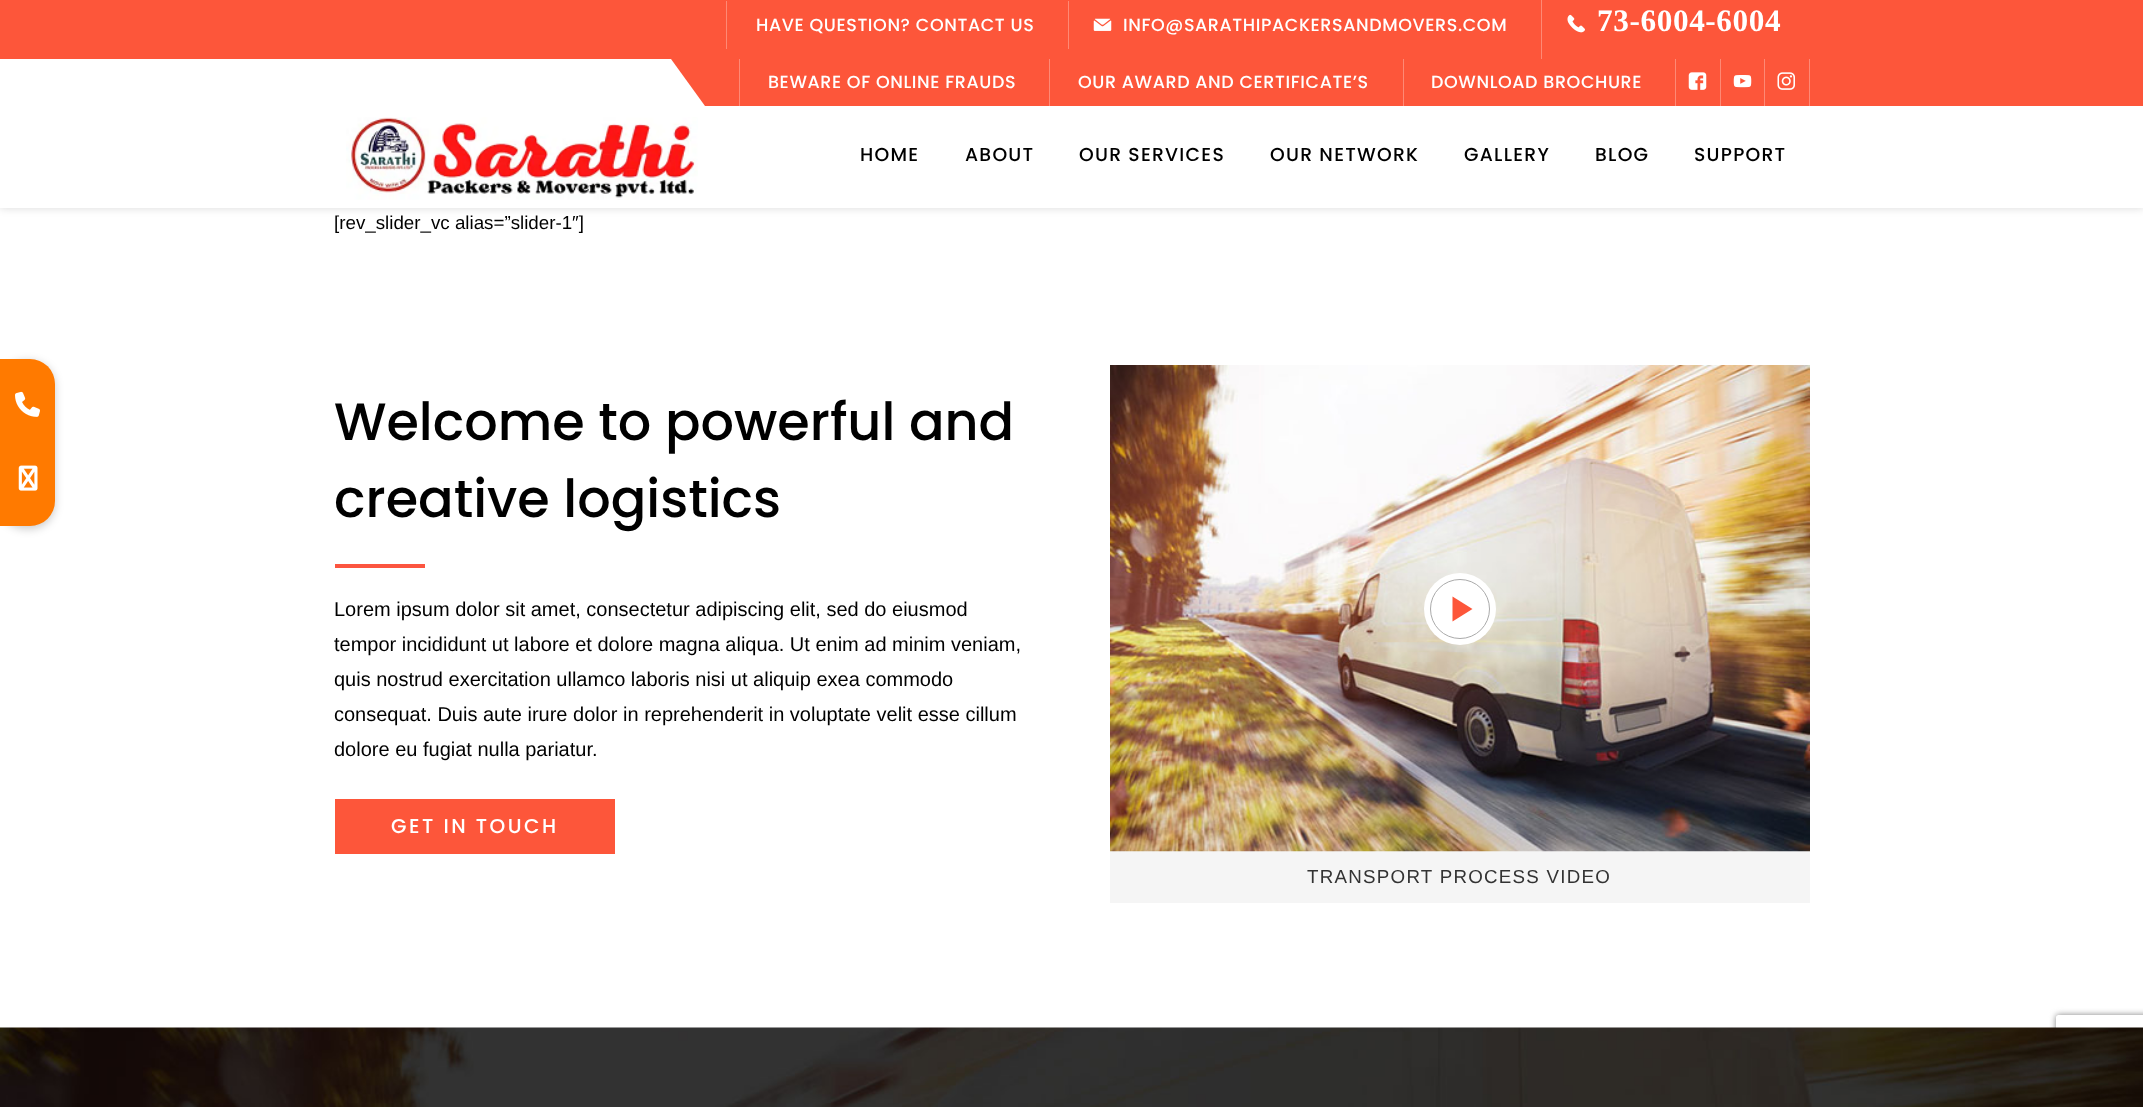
async function draw(canvas) {
	canvas.width = 2143;
	canvas.height = 1107;
	const c = canvas.getContext('2d');
	c.miterLimit = 4;
	c.fontKerning = 'normal';
	async function loadImage(src) {
		const img = new Image();
		img.src = src;
		await img.decode();
		return img;
	}

	c.fillStyle = '#fff';
	c.fillRect(0, 0, 2143, 1107);
	c.fillStyle = '#00000033';
	c.filter = 'blur(4px)';
	c.beginPath();
	c.roundRect(0, 361, 55, 168, 25);
	c.fill();
	c.filter = 'none';
	c.fillStyle = '#ff7a00';
	c.beginPath();
	c.roundRect(0, 359, 55, 167, [0, 25, 25, 0]);
	c.fill();
	c.drawImage(await loadImage('img1.png'), 15, 391, 25, 26);
	c.drawImage(await loadImage('img2.png'), 18, 465, 20, 26);
	c.fillStyle = '#00000026';
	c.filter = 'blur(4.5px)';
	c.beginPath();
	c.rect(0, 0, 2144, 208);
	c.fill();
	c.filter = 'none';
	c.fillStyle = '#fd563a';
	c.fillRect(0, 0, 2143, 106);
	c.fillStyle = '#fff';
	c.fillRect(0, 59, 671, 47);
	c.beginPath();
	c.moveTo(671, 106);
	c.lineTo(671, 59);
	c.lineTo(705, 106);
	c.closePath();
	c.fill();
	c.fillStyle = '#fe8975';
	c.fillRect(726, 1, 1, 48);
	c.letterSpacing = '0.6px';
	c.font = '500 17.5px Poppins';
	c.fillStyle = '#fff';
	c.fillText('HAVE QUESTION? CONTACT US', 756, 31);
	c.fillStyle = '#fe8975';
	c.fillRect(1068, 1, 1, 48);
	c.drawImage(await loadImage('img3.png'), 1093, 18, 19, 13);
	c.fillStyle = '#fff';
	c.fillText('INFO@SARATHIPACKERSANDMOVERS.COM', 1123, 31);
	c.fillStyle = '#fe8975';
	c.fillRect(1541, 0, 1, 59);
	c.drawImage(await loadImage('img4.png'), 1567, 14, 18, 19);
	c.font = 'bold 31.25px Liberation Serif';
	c.fillStyle = '#fff';
	c.fillText('73-6004-6004', 1597, 31);
	c.fillStyle = '#fe8975';
	c.fillRect(739, 59, 1, 47);
	c.font = '500 17.5px Poppins';
	c.fillStyle = '#fff';
	c.fillText('BEWARE OF ONLINE FRAUDS', 768, 88);
	c.fillStyle = '#fe8975';
	c.fillRect(1049, 59, 1, 47);
	c.fillStyle = '#fff';
	c.fillText('OUR AWARD AND CERTIFICATE’S', 1078, 88);
	c.fillStyle = '#fe8975';
	c.fillRect(1403, 59, 1, 47);
	c.fillStyle = '#fff';
	c.fillText('DOWNLOAD BROCHURE', 1431, 88);
	c.fillStyle = '#fe8975';
	c.fillRect(1675, 59, 1, 47);
	c.drawImage(await loadImage('img5.png'), 1688, 72, 19, 18);
	c.fillRect(1720, 59, 1, 47);
	c.drawImage(await loadImage('img6.png'), 1733, 75, 19, 13);
	c.fillRect(1809, 59, 1, 47);
	c.fillRect(1764, 59, 1, 47);
	c.drawImage(await loadImage('img7.png'), 1777, 72, 18, 18);
	c.fillStyle = '#fff';
	c.fillRect(0, 106, 2143, 102);
	c.drawImage(await loadImage('img8.png'), 346, 117, 352, 83);
	c.letterSpacing = '1.25px';
	c.font = '500 18.75px Poppins';
	c.fillStyle = '#000';
	for (const [text, x, y] of [
		['HOME', 860, 161],
		['ABOUT', 965, 161],
		['OUR SERVICES', 1079, 161],
		['OUR NETWORK', 1270, 161],
		['GALLERY', 1464, 161],
		['BLOG', 1595, 161],
		['SUPPORT', 1694, 161],
	]) {
		c.fillText(text, x, y);
	}
	c.letterSpacing = '0px';
	c.font = '18.75px Liberation Sans';
	c.fillText('[rev_slider_vc alias=”slider-1″]', 334, 229);
	c.font = '500 52.5px Poppins';
	c.fillText('Welcome to powerful and', 334, 440);
	c.fillText('creative logistics', 334, 517);
	c.fillStyle = '#fc5540';
	c.fillRect(335, 564, 90, 4);
	c.font = '20px Liberation Sans';
	c.fillStyle = '#000';
	for (const [text, x, y] of [
		['Lorem ipsum dolor sit amet, consectetur adipiscing elit, sed do eiusmod', 334, 616],
		['tempor incididunt ut labore et dolore magna aliqua. Ut enim ad minim veniam,', 334, 651],
		['quis nostrud exercitation ullamco laboris nisi ut aliquip exea commodo', 334, 686],
		['consequat. Duis aute irure dolor in reprehenderit in voluptate velit esse cillum', 334, 721],
		['dolore eu fugiat nulla pariatur.', 334, 756],
	]) {
		c.fillText(text, x, y);
	}
	c.fillStyle = '#fd563a';
	c.fillRect(335, 799, 280, 55);
	c.letterSpacing = '2.5px';
	c.font = '500 20px Poppins';
	c.fillStyle = '#fff';
	c.fillText('GET IN TOUCH', 391, 833);
	c.fillStyle = '#f5f5f5';
	c.fillRect(1110, 851, 700, 52);
	c.drawImage(await loadImage('img9.png'), 1110, 365, 700, 487);
	c.fillStyle = '#fff';
	c.beginPath();
	c.arc(1460, 609, 36, 0, 2 * Math.PI);
	c.fill();
	c.beginPath();
	c.arc(1460, 609, 29.5, 0, 2 * Math.PI);
	c.strokeStyle = '#aaa';
	c.stroke();
	c.fillStyle = '#fd563a';
	c.beginPath();
	c.moveTo(1452.5, 596.5);
	c.lineTo(1452.5, 621.5);
	c.lineTo(1472.5, 609);
	c.closePath();
	c.fill();
	c.letterSpacing = '1.25px';
	c.font = '18.75px Liberation Sans';
	c.fillStyle = '#333';
	c.fillText('TRANSPORT PROCESS VIDEO', 1307, 883);
	c.save();
	c.beginPath();
	c.moveTo(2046, 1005);
	c.lineTo(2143, 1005);
	c.lineTo(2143, 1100);
	c.lineTo(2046, 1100);
	c.closePath();
	c.moveTo(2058.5, 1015);
	c.lineTo(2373.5, 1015);
	c.bezierCurveTo(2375, 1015, 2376, 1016, 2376, 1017.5);
	c.lineTo(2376, 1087.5);
	c.bezierCurveTo(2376, 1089, 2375, 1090, 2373.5, 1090);
	c.lineTo(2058.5, 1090);
	c.bezierCurveTo(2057, 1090, 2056, 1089, 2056, 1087.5);
	c.lineTo(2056, 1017.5);
	c.bezierCurveTo(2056, 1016, 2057, 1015, 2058.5, 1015);
	c.closePath();
	c.clip('evenodd');
	c.fillStyle = '#808080';
	c.filter = 'blur(3px)';
	c.beginPath();
	c.roundRect(2056, 1015, 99, 75, 2.5);
	c.fill();
	c.filter = 'none';
	c.restore();
	c.drawImage(await loadImage('img10.png'), 0, 1027, 2143, 80);
}

draw(document.querySelector('canvas'));
